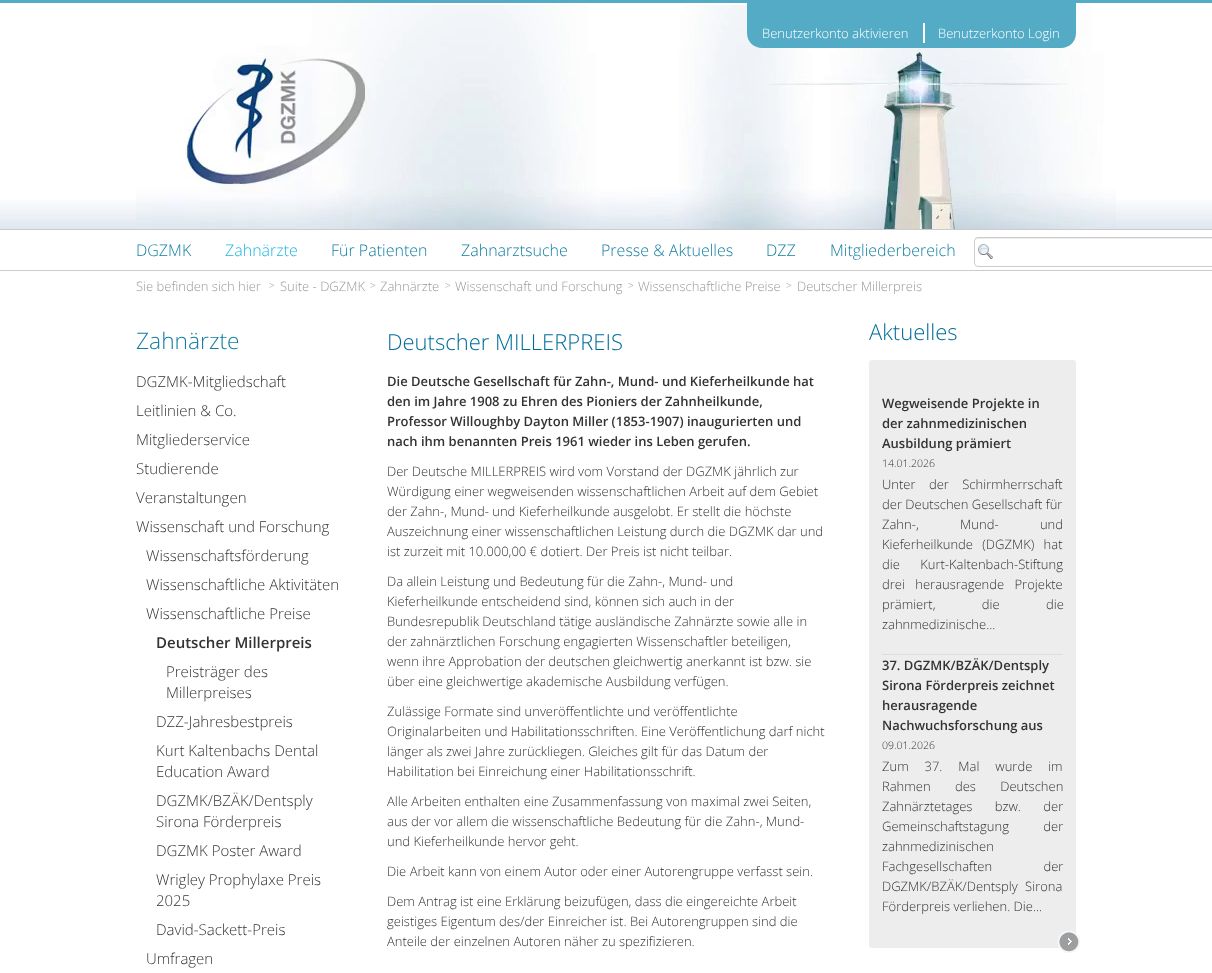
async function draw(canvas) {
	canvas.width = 1212;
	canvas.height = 973;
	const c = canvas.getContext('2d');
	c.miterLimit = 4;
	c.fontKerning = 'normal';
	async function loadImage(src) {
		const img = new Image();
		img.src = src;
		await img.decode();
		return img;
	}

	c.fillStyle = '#fff';
	c.fillRect(0, 0, 1212, 973);
	c.fillStyle = '#53abc6';
	c.fillRect(0, 0, 1212, 3);
	c.drawImage(await loadImage('img1.png'), 0, 200, 1212, 29);
	c.drawImage(await loadImage('img2.png'), 136, 5, 980, 224);
	c.beginPath();
	c.moveTo(747, -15);
	c.lineTo(1076, -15);
	c.lineTo(1076, 33);
	c.bezierCurveTo(1076, 41.5, 1069.5, 48, 1061, 48);
	c.lineTo(762, 48);
	c.bezierCurveTo(753.5, 48, 747, 41.5, 747, 33);
	c.closePath();
	c.fill();
	c.font = '300 13px Open Sans';
	c.fillStyle = '#fff';
	c.fillText('Benutzerkonto aktivieren', 762, 38);
	c.fillRect(923, 23, 2, 20);
	c.fillText('Benutzerkonto Login', 938, 38);
	c.fillStyle = '#ccc';
	c.fillRect(0, 229, 1212, 1);
	c.drawImage(await loadImage('img3.png'), 185, 57, 883, 170);
	c.drawImage(await loadImage('img4.png'), 187, 146, 53, 38);
	c.fillRect(0, 270, 1212, 1);
	c.font = '300 16px Open Sans';
	c.fillStyle = '#127fa1';
	c.fillText('DGZMK', 136, 256);
	c.fillStyle = '#21b7e6';
	c.fillText('Zahnärzte', 225, 256);
	c.fillStyle = '#127fa1';
	for (const [text, x, y] of [
		['Für Patienten', 331, 256],
		['Zahnarztsuche', 461, 256],
		['Presse & Aktuelles', 601, 256],
		['DZZ', 766, 256],
		['Mitgliederbereich', 830, 256],
	]) {
		c.fillText(text, x, y);
	}
	c.drawImage(await loadImage('img5.png'), 978, 244, 15, 15);
	c.fillStyle = '#ececec';
	c.beginPath();
	c.moveTo(978, 239);
	c.lineTo(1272, 239);
	c.bezierCurveTo(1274, 239, 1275, 240, 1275, 242);
	c.lineTo(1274, 239);
	c.lineTo(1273, 238);
	c.lineTo(978, 238);
	c.bezierCurveTo(976, 238, 975, 240, 975, 242);
	c.bezierCurveTo(975, 240, 976, 239, 978, 239);
	c.closePath();
	c.fill();
	c.beginPath();
	c.roundRect(974.5, 237.5, 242, 29, 3.5);
	c.strokeStyle = '#ccc';
	c.stroke();
	c.font = '300 13px Open Sans';
	c.fillStyle = '#999';
	c.fillText('Sie befinden sich hier', 136, 291);
	c.font = '300 10px Open Sans';
	c.fillText('>', 269, 289);
	c.font = '300 13px Open Sans';
	c.fillText('Suite - DGZMK', 280, 291);
	c.font = '300 10px Open Sans';
	c.fillText('>', 370, 289);
	c.font = '300 13px Open Sans';
	c.fillText('Zahnärzte', 380, 291);
	c.font = '300 10px Open Sans';
	c.fillText('>', 445, 289);
	c.font = '300 13px Open Sans';
	c.fillText('Wissenschaft und Forschung', 455, 291);
	c.font = '300 10px Open Sans';
	c.fillText('>', 628, 289);
	c.font = '300 13px Open Sans';
	c.fillText('Wissenschaftliche Preise', 638, 291);
	c.font = '300 10px Open Sans';
	c.fillText('>', 786, 289);
	c.font = '300 13px Open Sans';
	c.fillText('Deutscher Millerpreis', 797, 291);
	c.font = '300 22.75px Open Sans';
	c.fillStyle = '#127fa1';
	c.fillText('Zahnärzte', 136, 349);
	c.font = '300 15px Open Sans';
	c.fillStyle = '#333';
	for (const [text, x, y] of [
		['DGZMK-Mitgliedschaft', 136, 387],
		['Leitlinien & Co.', 136, 416],
		['Mitgliederservice', 136, 445],
		['Studierende', 136, 474],
		['Veranstaltungen', 136, 503],
		['Wissenschaft und Forschung', 136, 532],
		['Wissenschaftsförderung', 146, 561],
		['Wissenschaftliche Aktivitäten', 146, 590],
		['Wissenschaftliche Preise', 146, 619],
	]) {
		c.fillText(text, x, y);
	}
	c.font = '600 15px Open Sans';
	c.fillText('Deutscher Millerpreis', 156, 648);
	c.font = '300 15px Open Sans';
	for (const [text, x, y] of [
		['Preisträger des', 166, 677],
		['Millerpreises', 166, 698],
		['DZZ-Jahresbestpreis', 156, 727],
		['Kurt Kaltenbachs Dental', 156, 756],
		['Education Award', 156, 777],
		['DGZMK/BZÄK/Dentsply', 156, 806],
		['Sirona Förderpreis', 156, 827],
		['DGZMK Poster Award', 156, 856],
		['Wrigley Prophylaxe Preis', 156, 885],
		['2025', 156, 906],
		['David-Sackett-Preis', 156, 935],
		['Umfragen', 146, 964],
	]) {
		c.fillText(text, x, y);
	}
	c.font = '300 22px Open Sans';
	c.fillStyle = '#006d99';
	c.fillText('Deutscher MILLERPREIS', 387, 350);
	c.font = '600 13px Open Sans';
	c.fillStyle = '#333';
	for (const [text, x, y] of [
		['Die Deutsche Gesellschaft für Zahn-, Mund- und Kieferheilkunde hat', 387, 386],
		['den im Jahre 1908 zu Ehren des Pioniers der Zahnheilkunde,', 387, 406],
		['Professor Willoughby Dayton Miller (1853-1907) inaugurierten und', 387, 426],
		['nach ihm benannten Preis 1961 wieder ins Leben gerufen.', 387, 446],
	]) {
		c.fillText(text, x, y);
	}
	c.font = '300 13px Open Sans';
	for (const [text, x, y] of [
		['Der Deutsche MILLERPREIS wird vom Vorstand der DGZMK jährlich zur', 387, 476],
		['Würdigung einer wegweisenden wissenschaftlichen Arbeit auf dem Gebiet', 387, 496],
		['der Zahn-, Mund- und Kieferheilkunde ausgelobt. Er stellt die höchste', 387, 516],
		['Auszeichnung einer wissenschaftlichen Leistung durch die DGZMK dar und', 387, 536],
		['ist zurzeit mit 10.000,00 € dotiert. Der Preis ist nicht teilbar.', 387, 556],
		['Da allein Leistung und Bedeutung für die Zahn-, Mund- und', 387, 586],
		['Kieferheilkunde entscheidend sind, können sich auch in der', 387, 606],
		['Bundesrepublik Deutschland tätige ausländische Zahnärzte sowie alle in', 387, 626],
		['der zahnärztlichen Forschung engagierten Wissenschaftler beteiligen,', 387, 646],
		['wenn ihre Approbation der deutschen gleichwertig anerkannt ist bzw. sie', 387, 666],
		['über eine gleichwertige akademische Ausbildung verfügen.', 387, 686],
		['Zulässige Formate sind unveröffentlichte und veröffentlichte', 387, 716],
		['Originalarbeiten und Habilitationsschriften. Eine Veröffentlichung darf nicht', 387, 736],
		['länger als zwei Jahre zurückliegen. Gleiches gilt für das Datum der', 387, 756],
		['Habilitation bei Einreichung einer Habilitationsschrift.', 387, 776],
		['Alle Arbeiten enthalten eine Zusammenfassung von maximal zwei Seiten,', 387, 806],
		['aus der vor allem die wissenschaftliche Bedeutung für die Zahn-, Mund-', 387, 826],
		['und Kieferheilkunde hervor geht.', 387, 846],
		['Die Arbeit kann von einem Autor oder einer Autorengruppe verfasst sein.', 387, 876],
		['Dem Antrag ist eine Erklärung beizufügen, dass die eingereichte Arbeit', 387, 906],
		['geistiges Eigentum des/der Einreicher ist. Bei Autorengruppen sind die', 387, 926],
		['Anteile der einzelnen Autoren näher zu spezifizieren.', 387, 946],
	]) {
		c.fillText(text, x, y);
	}
	c.font = '300 22px Open Sans';
	c.fillStyle = '#006d99';
	c.fillText('Aktuelles', 869, 340);
	c.fillStyle = '#ededed';
	c.beginPath();
	c.roundRect(869, 360, 207, 588, 3);
	c.fill();
	c.font = '600 13px Open Sans';
	c.fillStyle = '#333';
	for (const [text, x, y] of [
		['Wegweisende Projekte in', 882, 408],
		['der zahnmedizinischen', 882, 428],
		['Ausbildung prämiert', 882, 448],
	]) {
		c.fillText(text, x, y);
	}
	c.font = '300 10.5px Open Sans';
	c.fillText('14.01.2026', 882, 467);
	c.wordSpacing = '10px';
	c.font = '300 13px Open Sans';
	c.fillText('Unter der Schirmherrschaft', 882, 489);
	c.wordSpacing = '0px';
	c.fillText('der Deutschen Gesellschaft für', 882, 509);
	c.wordSpacing = '38px';
	c.fillText('Zahn-, Mund- und', 882, 529);
	c.wordSpacing = '6px';
	c.fillText('Kieferheilkunde (DGZMK) hat', 882, 549);
	c.wordSpacing = '17px';
	c.fillText('die Kurt-Kaltenbach-Stiftung', 882, 569);
	c.wordSpacing = '7px';
	c.fillText('drei herausragende Projekte', 882, 589);
	c.wordSpacing = '43px';
	c.fillText('prämiert, die die', 882, 609);
	c.wordSpacing = '0px';
	c.fillText('zahnmedizinische...', 882, 629);
	c.fillStyle = '#ddd';
	c.fillRect(882, 654, 181, 1);
	c.font = '600 13px Open Sans';
	c.fillStyle = '#333';
	for (const [text, x, y] of [
		['37. DGZMK/BZÄK/Dentsply', 882, 670],
		['Sirona Förderpreis zeichnet', 882, 690],
		['herausragende', 882, 710],
		['Nachwuchsforschung aus', 882, 730],
	]) {
		c.fillText(text, x, y);
	}
	c.font = '300 10.5px Open Sans';
	c.fillText('09.01.2026', 882, 749);
	c.wordSpacing = '12.5px';
	c.font = '300 13px Open Sans';
	c.fillText('Zum 37. Mal wurde im', 882, 771);
	c.wordSpacing = '21px';
	c.fillText('Rahmen des Deutschen', 882, 791);
	c.wordSpacing = '19px';
	c.fillText('Zahnärztetages bzw. der', 882, 811);
	c.wordSpacing = '31px';
	c.fillText('Gemeinschaftstagung der', 882, 831);
	c.wordSpacing = '0px';
	c.fillText('zahnmedizinischen', 882, 851);
	c.wordSpacing = '48px';
	c.fillText('Fachgesellschaften der', 882, 871);
	c.wordSpacing = '4px';
	c.fillText('DGZMK/BZÄK/Dentsply Sirona', 882, 891);
	c.wordSpacing = '0px';
	c.fillText('Förderpreis verliehen. Die...', 882, 911);
	c.drawImage(await loadImage('img6.png'), 1057, 930, 23, 23);
}

draw(document.querySelector('canvas'));
